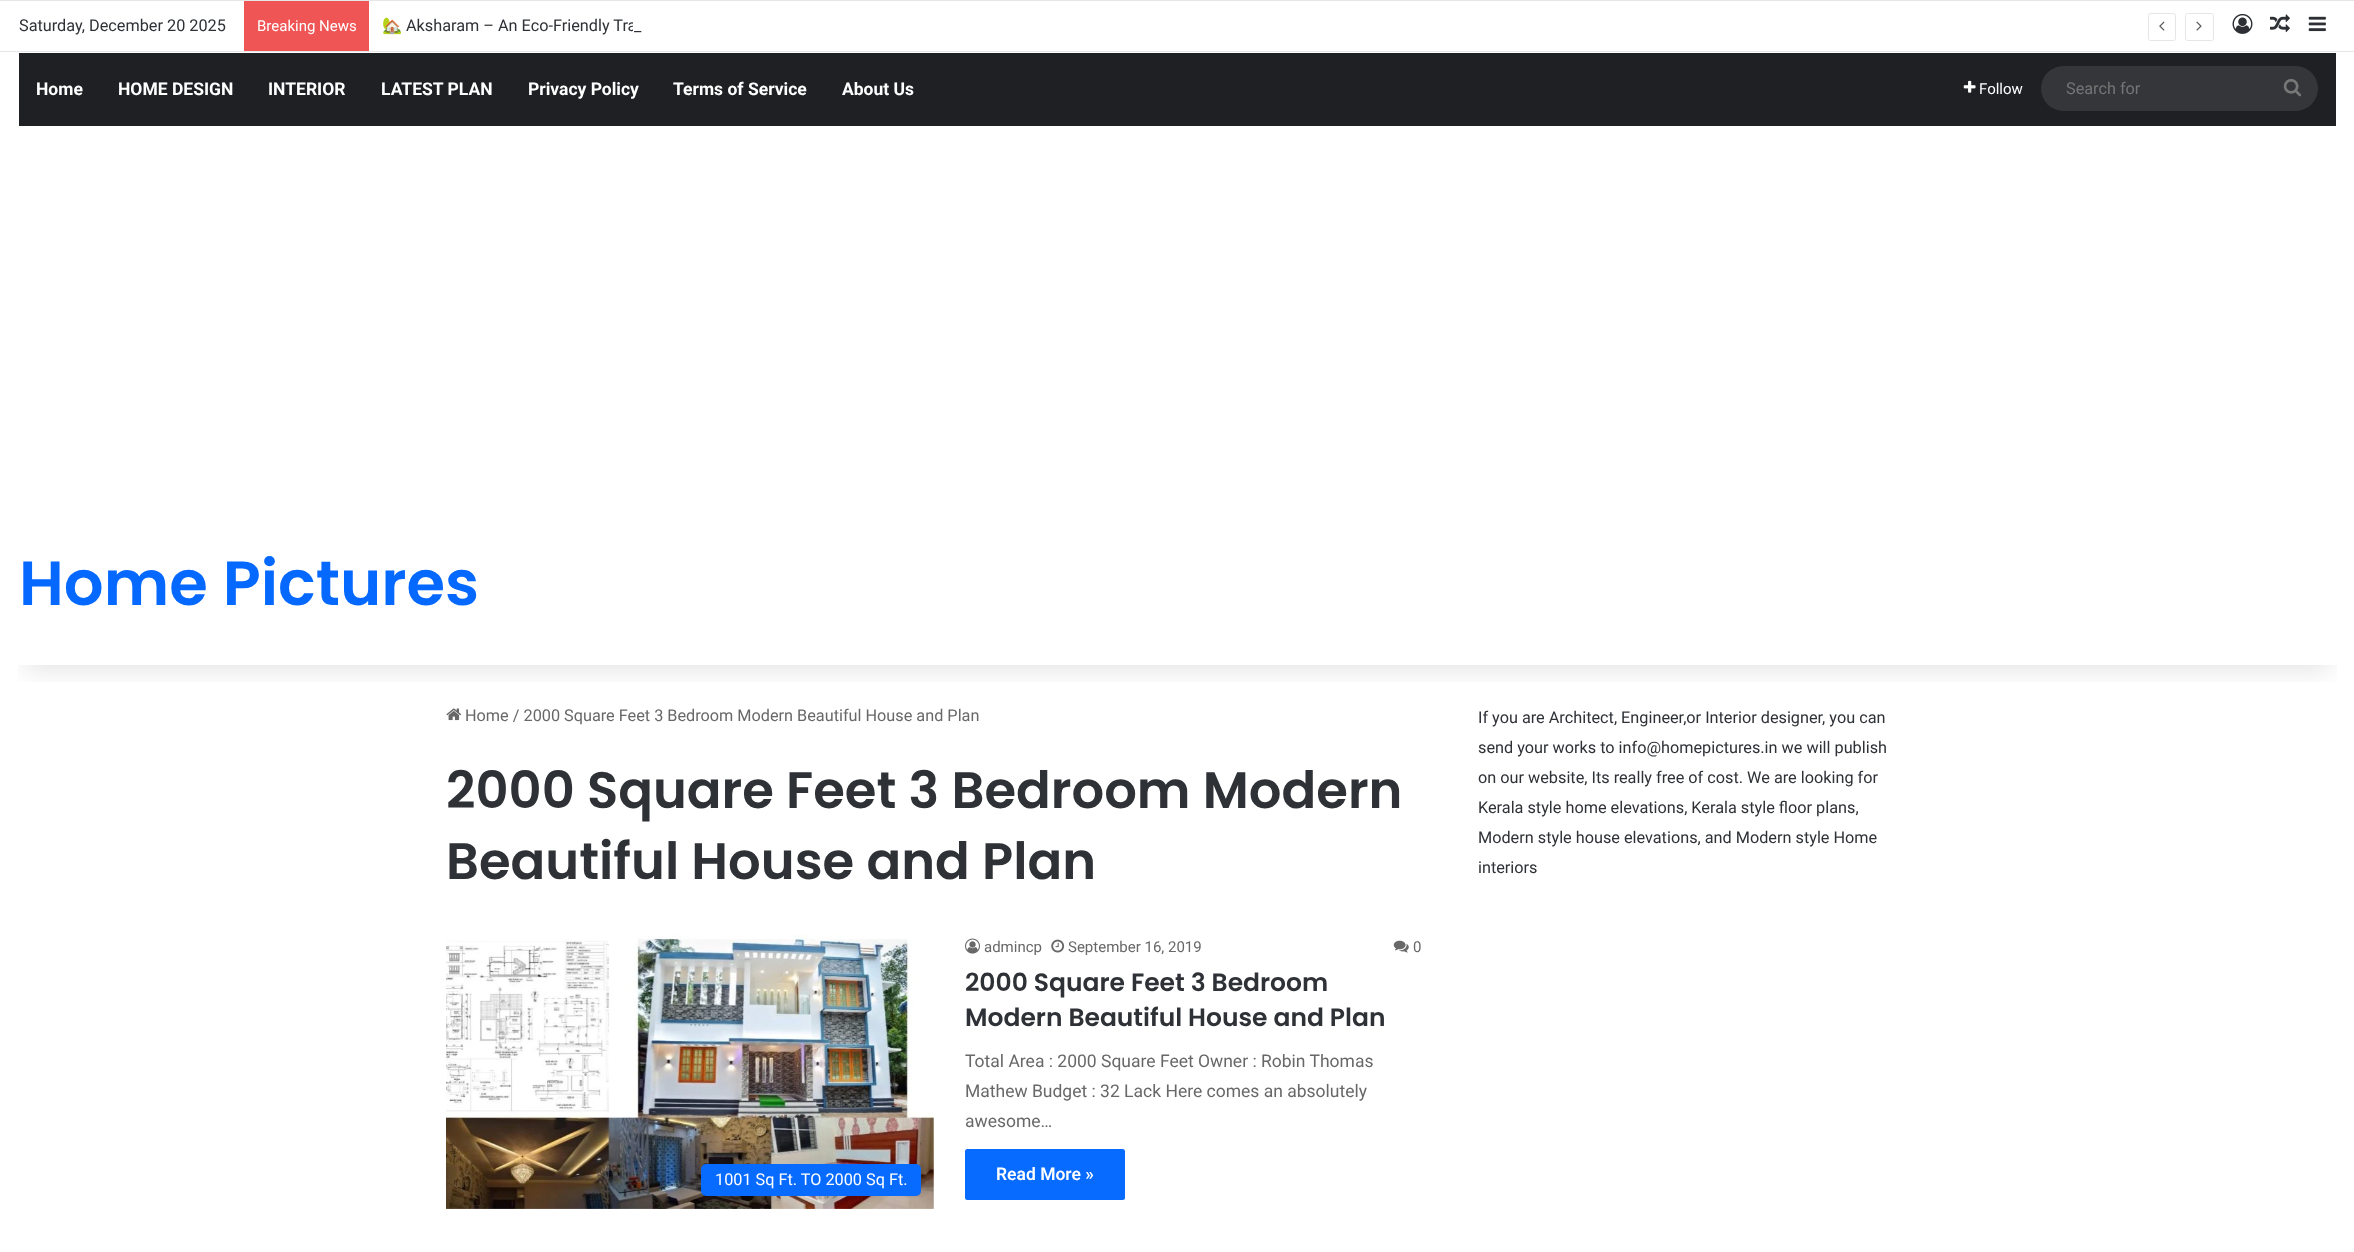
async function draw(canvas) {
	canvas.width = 2354;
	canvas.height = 1252;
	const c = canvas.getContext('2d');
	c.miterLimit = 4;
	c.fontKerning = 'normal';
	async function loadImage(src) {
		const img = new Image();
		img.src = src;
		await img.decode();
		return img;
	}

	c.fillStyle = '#fff';
	c.fillRect(0, 0, 2354, 1252);
	c.drawImage(await loadImage('img8.png'), 446, 708, 16, 13);
	c.save();
	c.beginPath();
	c.rect(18, 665, 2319, 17);
	c.clip();
	c.fillStyle = '#0000001a';
	c.filter = 'blur(12.5px)';
	c.beginPath();
	c.rect(25, 56, 2305, 615);
	c.fill();
	c.filter = 'none';
	c.restore();
	c.fillStyle = '#e6e6e6';
	c.fillRect(0, 0, 2354, 1);
	c.fillRect(0, 51, 2354, 1);
	c.font = '16.25px Roboto';
	c.fillStyle = '#2e3136';
	c.fillText('Saturday, December 20 2025', 19, 31);
	c.fillStyle = '#f05555';
	c.fillRect(244, 1, 125, 50);
	c.font = '15px Roboto';
	c.fillStyle = '#fff';
	c.fillText('Breaking News', 257, 31);
	c.font = '16.25px Noto Color Emoji';
	c.fillStyle = '#2e3136';
	c.fillText('🏡', 382, 31);
	c.font = '16.25px Roboto';
	c.fillText('Aksharam – An Eco-Friendly Tra', 406, 31);
	c.fillStyle = '#fff';
	c.fillRect(633, 22, 3, 9);
	c.fillStyle = '#2e3136';
	c.fillText('_', 634, 31);
	c.beginPath();
	c.roundRect(2148.5, 13.5, 27, 27, 2);
	c.strokeStyle = '#e6e6e6';
	c.stroke();
	c.drawImage(await loadImage('img1.png'), 2159, 21, 6, 10);
	c.beginPath();
	c.roundRect(2185.5, 13.5, 28, 27, 2);
	c.stroke();
	c.drawImage(await loadImage('img2.png'), 2196, 21, 6, 10);
	c.drawImage(await loadImage('img3.png'), 2232, 13, 21, 21);
	c.drawImage(await loadImage('img4.png'), 2270, 14, 20, 19);
	c.drawImage(await loadImage('img5.png'), 2308, 16, 18, 16);
	c.fillStyle = '#1f2024';
	c.fillRect(19, 53, 2317, 73);
	c.font = 'bold 17.5px Roboto';
	c.fillStyle = '#fff';
	for (const [text, x, y] of [
		['Home', 36, 95],
		['HOME DESIGN', 118, 95],
		['INTERIOR', 268, 95],
		['LATEST PLAN', 381, 95],
		['Privacy Policy', 528, 95],
		['Terms of Service', 673, 95],
		['About Us', 842, 95],
	]) {
		c.fillText(text, x, y);
	}
	c.drawImage(await loadImage('img6.png'), 1963, 80, 13, 13);
	c.font = '15px Roboto';
	c.fillText('Follow', 1979, 94);
	c.fillStyle = '#35363a';
	c.beginPath();
	c.roundRect(2041, 66, 277, 45, 22.5);
	c.fill();
	c.font = '16.25px Roboto';
	c.fillStyle = '#757575';
	c.fillText('Search for', 2066, 94);
	c.drawImage(await loadImage('img7.png'), 2283, 79, 19, 18);
	c.font = '600 62.5px Poppins';
	c.fillStyle = '#0669ff';
	c.fillText('Home Pictures', 19, 605);
	c.font = '16.25px Roboto';
	c.fillStyle = '#686868';
	c.fillText('Home / 2000 Square Feet 3 Bedroom Modern Beautiful House and Plan', 465, 721);
	c.font = '600 51.25px Poppins';
	c.fillStyle = '#2e3136';
	c.fillText('2000 Square Feet 3 Bedroom Modern', 446, 808);
	c.fillText('Beautiful House and Plan', 446, 879);
	c.drawImage(await loadImage('img9.png'), 446, 935, 488, 274);
	c.fillStyle = '#086bff';
	c.beginPath();
	c.roundRect(701, 1164, 220, 32, 5);
	c.fill();
	c.font = '16.25px Roboto';
	c.fillStyle = '#fff';
	c.fillText('1001 Sq Ft. TO 2000 Sq Ft.', 715, 1185);
	c.drawImage(await loadImage('img10.png'), 965, 938, 15, 16);
	c.font = '15px Roboto';
	c.fillStyle = '#686868';
	c.fillText('admincp', 984, 952);
	c.drawImage(await loadImage('img11.png'), 1051, 939, 14, 14);
	c.fillText('September 16, 2019', 1068, 952);
	c.drawImage(await loadImage('img12.png'), 1393, 940, 16, 13);
	c.fillText('0', 1413, 952);
	c.font = '600 25px Poppins';
	c.fillStyle = '#2e3136';
	c.fillText('2000 Square Feet 3 Bedroom', 965, 991);
	c.fillText('Modern Beautiful House and Plan', 965, 1026);
	c.font = '17.5px Roboto';
	c.fillStyle = '#686868';
	for (const [text, x, y] of [
		['Total Area : 2000 Square Feet Owner : Robin Thomas', 965, 1067],
		['Mathew Budget : 32 Lack Here comes an absolutely', 965, 1097],
		['awesome…', 965, 1127],
	]) {
		c.fillText(text, x, y);
	}
	c.fillStyle = '#086bff';
	c.beginPath();
	c.roundRect(965, 1149, 160, 51, 2.5);
	c.fill();
	c.font = '600 17.5px Roboto';
	c.fillStyle = '#fff';
	c.fillText('Read More »', 996, 1180);
	c.font = '16.25px Roboto';
	c.fillStyle = '#2e3136';
	for (const [text, x, y] of [
		['If you are Architect, Engineer,or Interior designer, you can', 1478, 723],
		['send your works to info@homepictures.in we will publish', 1478, 753],
		['on our website, Its really free of cost. We are looking for', 1478, 783],
		['Kerala style home elevations, Kerala style floor plans,', 1478, 813],
		['Modern style house elevations, and Modern style Home', 1478, 843],
		['interiors', 1478, 873],
	]) {
		c.fillText(text, x, y);
	}
}

draw(document.querySelector('canvas'));
